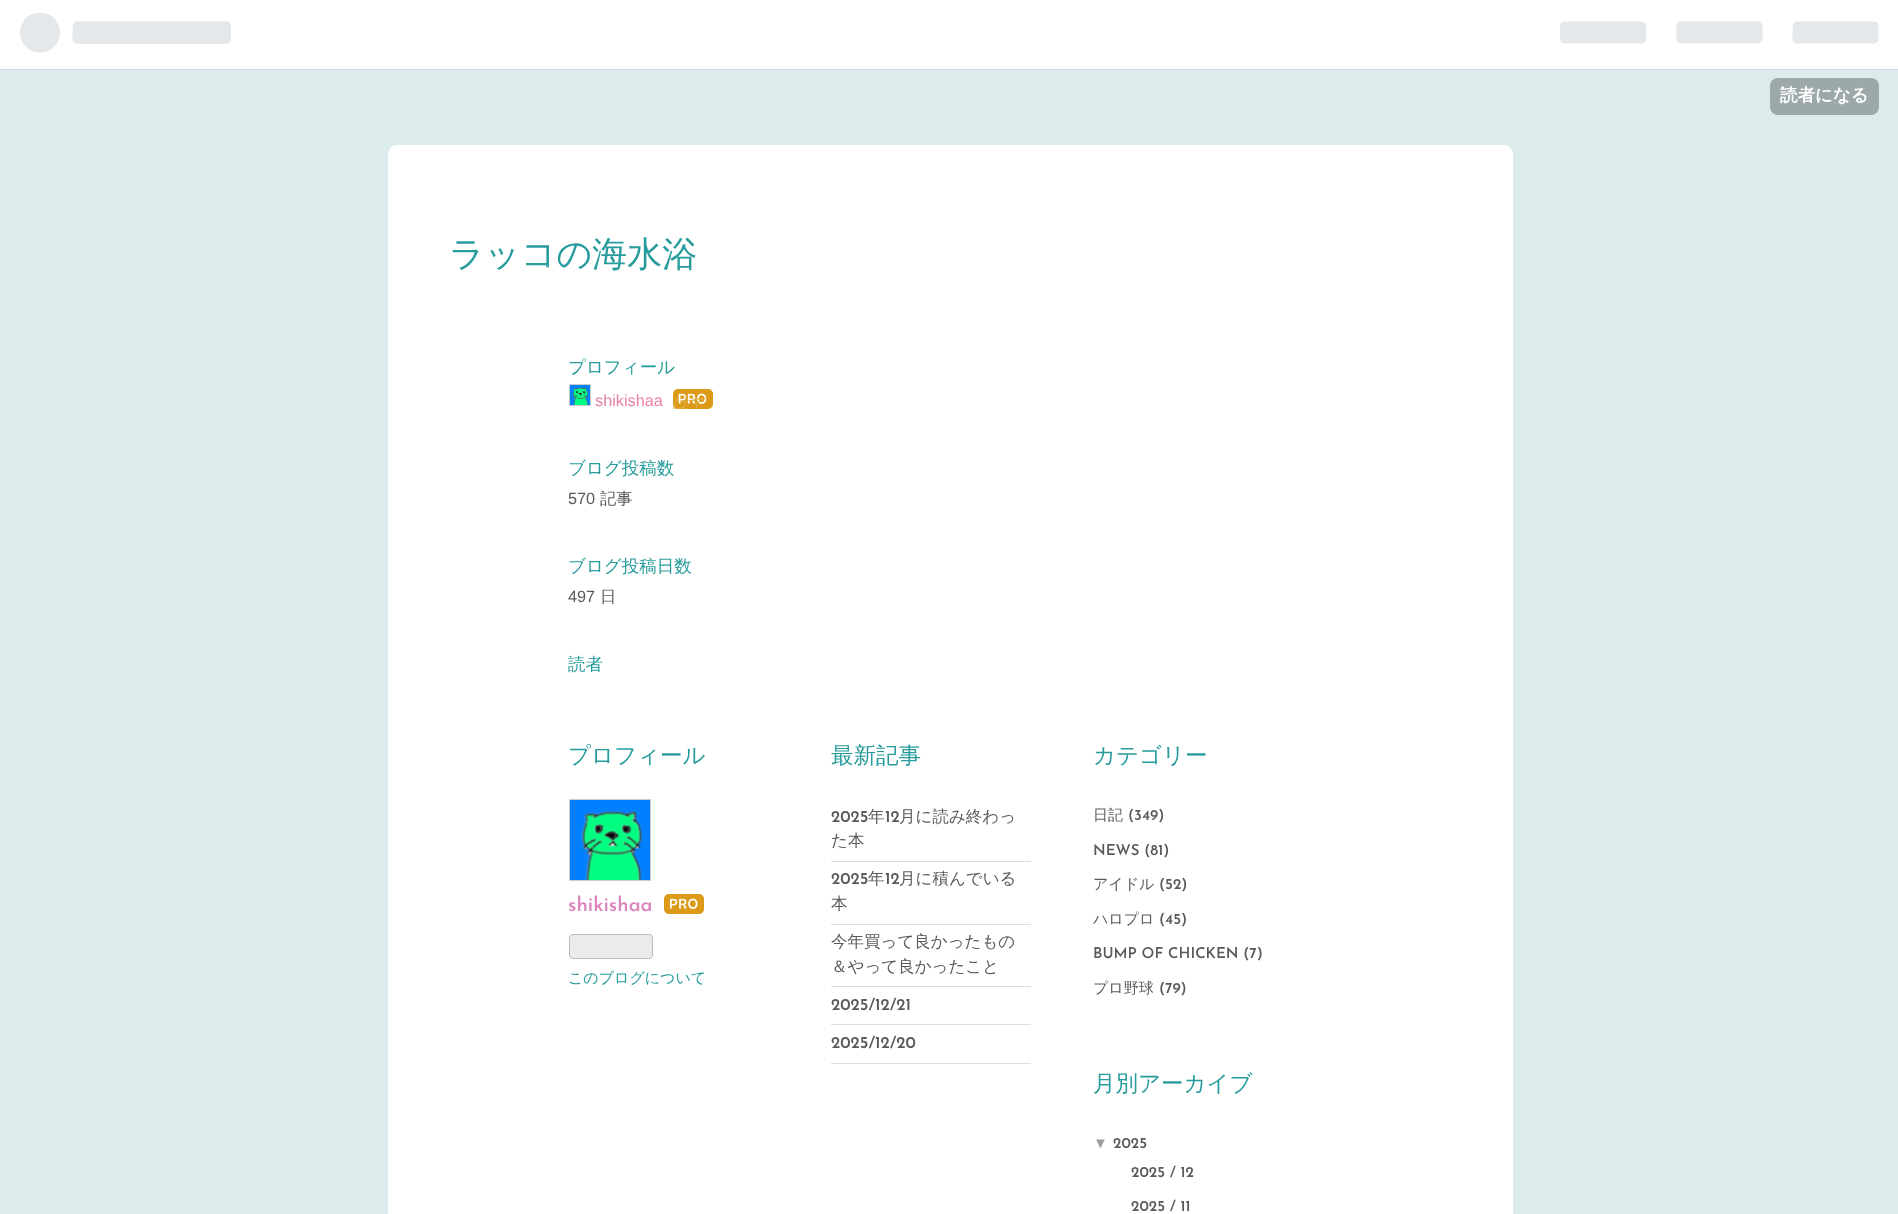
async function draw(canvas) {
	canvas.width = 1898;
	canvas.height = 1214;
	const c = canvas.getContext('2d');
	c.miterLimit = 4;
	c.fontKerning = 'normal';
	async function loadImage(src) {
		const img = new Image();
		img.src = src;
		await img.decode();
		return img;
	}

	c.fillStyle = '#dcecec';
	c.fillRect(0, 0, 1898, 1214);
	c.fillStyle = '#fff';
	c.fillRect(0, 0, 1898, 69);
	c.fillStyle = '#d2d8dd';
	c.fillRect(0, 69, 1898, 1);
	c.drawImage(await loadImage('img1.png'), 20, 13, 211, 40);
	c.drawImage(await loadImage('img2.png'), 1560, 21, 319, 23);
	c.fillStyle = '#9ca8a9';
	c.beginPath();
	c.roundRect(1770, 78, 109, 37, 8);
	c.fill();
	c.font = 'bold 17.5px WenQuanYi Zen Hei';
	c.fillStyle = '#fff';
	c.fillText('読者になる', 1780, 101);
	c.beginPath();
	c.roundRect(388, 145, 1125, 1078, 9);
	c.fill();
	c.font = '500 35px WenQuanYi Zen Hei';
	c.fillStyle = '#289c9c';
	c.fillText('ラッコの海水浴', 449, 266);
	c.font = '500 17.5px WenQuanYi Zen Hei';
	c.fillText('プロフィール', 568, 373);
	c.strokeStyle = '#ccc';
	c.strokeRect(569.5, 384.5, 21, 21);
	c.drawImage(await loadImage('img3.png'), 570, 385, 20, 20);
	c.font = '16.25px Liberation Sans';
	c.fillStyle = '#ea80a8';
	c.fillText('shikishaa', 595, 406);
	c.drawImage(await loadImage('img4.png'), 673, 389, 40, 20);
	c.save();
	c.beginPath();
	c.rect(673, 389, 40, 20);
	c.clip();
	c.font = 'italic 500 16.25px WenQuanYi Zen Hei';
	c.fillStyle = '#e2ae46';
	c.fillText('はて', 672, 409);
	c.restore();
	c.font = '500 17.5px WenQuanYi Zen Hei';
	c.fillStyle = '#289c9c';
	c.fillText('ブログ投稿数', 568, 474);
	c.font = '16.25px Liberation Sans';
	c.fillStyle = '#5a5a5a';
	c.fillText('570', 568, 504);
	c.font = '500 16.25px WenQuanYi Zen Hei';
	c.fillText('記事', 600, 504);
	c.font = '500 17.5px WenQuanYi Zen Hei';
	c.fillStyle = '#289c9c';
	c.fillText('ブログ投稿日数', 568, 572);
	c.font = '16.25px Liberation Sans';
	c.fillStyle = '#5a5a5a';
	c.fillText('497', 568, 602);
	c.font = '500 16.25px WenQuanYi Zen Hei';
	c.fillText('日', 600, 602);
	c.font = '500 17.5px WenQuanYi Zen Hei';
	c.fillStyle = '#289c9c';
	c.fillText('読者', 568, 670);
	c.font = '500 22.5px WenQuanYi Zen Hei';
	c.fillText('プロフィール', 568, 763);
	c.strokeRect(569.5, 799.5, 81, 81);
	c.drawImage(await loadImage('img5.png'), 570, 800, 80, 80);
	c.font = '100 20px Josefin Sans';
	c.fillStyle = '#db86bd';
	c.fillText('shikishaa', 568, 911);
	c.drawImage(await loadImage('img6.png'), 664, 894, 40, 20);
	c.fillStyle = '#ebebeb';
	c.beginPath();
	c.roundRect(569.5, 934.5, 83, 24, 3.5);
	c.fill();
	c.strokeStyle = '#bbb';
	c.stroke();
	c.font = '500 15px WenQuanYi Zen Hei';
	c.fillStyle = '#289c9c';
	c.fillText('このブログについて', 568, 983);
	c.font = '500 22.5px WenQuanYi Zen Hei';
	c.fillText('最新記事', 831, 763);
	c.fillStyle = '#ddd';
	c.fillRect(831, 861, 200, 1);
	c.font = '100 16.5px Josefin Sans';
	c.fillStyle = '#5a5a5a';
	c.fillText('2025', 831, 822);
	c.font = '500 16.5px WenQuanYi Zen Hei';
	c.fillText('年', 868, 822);
	c.font = '100 16.5px Josefin Sans';
	c.fillText('12', 885, 822);
	c.font = '500 16.5px WenQuanYi Zen Hei';
	c.fillText('月に読み終わっ', 899, 822);
	c.fillText('た本', 831, 846);
	c.fillStyle = '#ddd';
	c.fillRect(831, 924, 200, 1);
	c.font = '100 16.5px Josefin Sans';
	c.fillStyle = '#5a5a5a';
	c.fillText('2025', 831, 884);
	c.font = '500 16.5px WenQuanYi Zen Hei';
	c.fillText('年', 868, 884);
	c.font = '100 16.5px Josefin Sans';
	c.fillText('12', 885, 884);
	c.font = '500 16.5px WenQuanYi Zen Hei';
	c.fillText('月に積んでいる', 899, 884);
	c.fillText('本', 831, 909);
	c.fillStyle = '#ddd';
	c.fillRect(831, 986, 200, 1);
	c.fillStyle = '#5a5a5a';
	c.fillText('今年買って良かったもの', 831, 947);
	c.fillText('＆やって良かったこと', 831, 972);
	c.fillStyle = '#ddd';
	c.fillRect(831, 1024, 200, 1);
	c.font = '100 16.5px Josefin Sans';
	c.fillStyle = '#5a5a5a';
	c.fillText('2025/12/21', 831, 1010);
	c.fillStyle = '#ddd';
	c.fillRect(831, 1063, 200, 1);
	c.fillStyle = '#5a5a5a';
	c.fillText('2025/12/20', 831, 1048);
	c.font = '500 22.5px WenQuanYi Zen Hei';
	c.fillStyle = '#289c9c';
	c.fillText('カテゴリー', 1093, 763);
	c.font = '500 15px WenQuanYi Zen Hei';
	c.fillStyle = '#5a5a5a';
	c.fillText('日記', 1093, 820);
	c.font = '100 15px Josefin Sans';
	c.fillText('(349)', 1128, 820);
	c.fillText('NEWS (81)', 1093, 855);
	c.font = '500 15px WenQuanYi Zen Hei';
	c.fillText('アイドル', 1093, 889);
	c.font = '100 15px Josefin Sans';
	c.fillText('(52)', 1159, 889);
	c.font = '500 15px WenQuanYi Zen Hei';
	c.fillText('ハロプロ', 1093, 924);
	c.font = '100 15px Josefin Sans';
	c.fillText('(45)', 1159, 924);
	c.fillText('BUMP OF CHICKEN (7)', 1093, 958);
	c.font = '500 15px WenQuanYi Zen Hei';
	c.fillText('プロ野球', 1093, 993);
	c.font = '100 15px Josefin Sans';
	c.fillText('(79)', 1159, 993);
	c.font = '500 22.5px WenQuanYi Zen Hei';
	c.fillStyle = '#289c9c';
	c.fillText('月別アーカイブ', 1093, 1091);
	c.font = '15px Liberation Sans';
	c.fillStyle = '#9c9c9c';
	c.fillText('▼', 1093, 1148);
	c.font = '100 15px Josefin Sans';
	c.fillStyle = '#5a5a5a';
	for (const [text, x, y] of [
		['2025', 1113, 1148],
		['2025 / 12', 1131, 1177],
		['2025 / 11', 1131, 1211],
	]) {
		c.fillText(text, x, y);
	}
}

draw(document.querySelector('canvas'));
